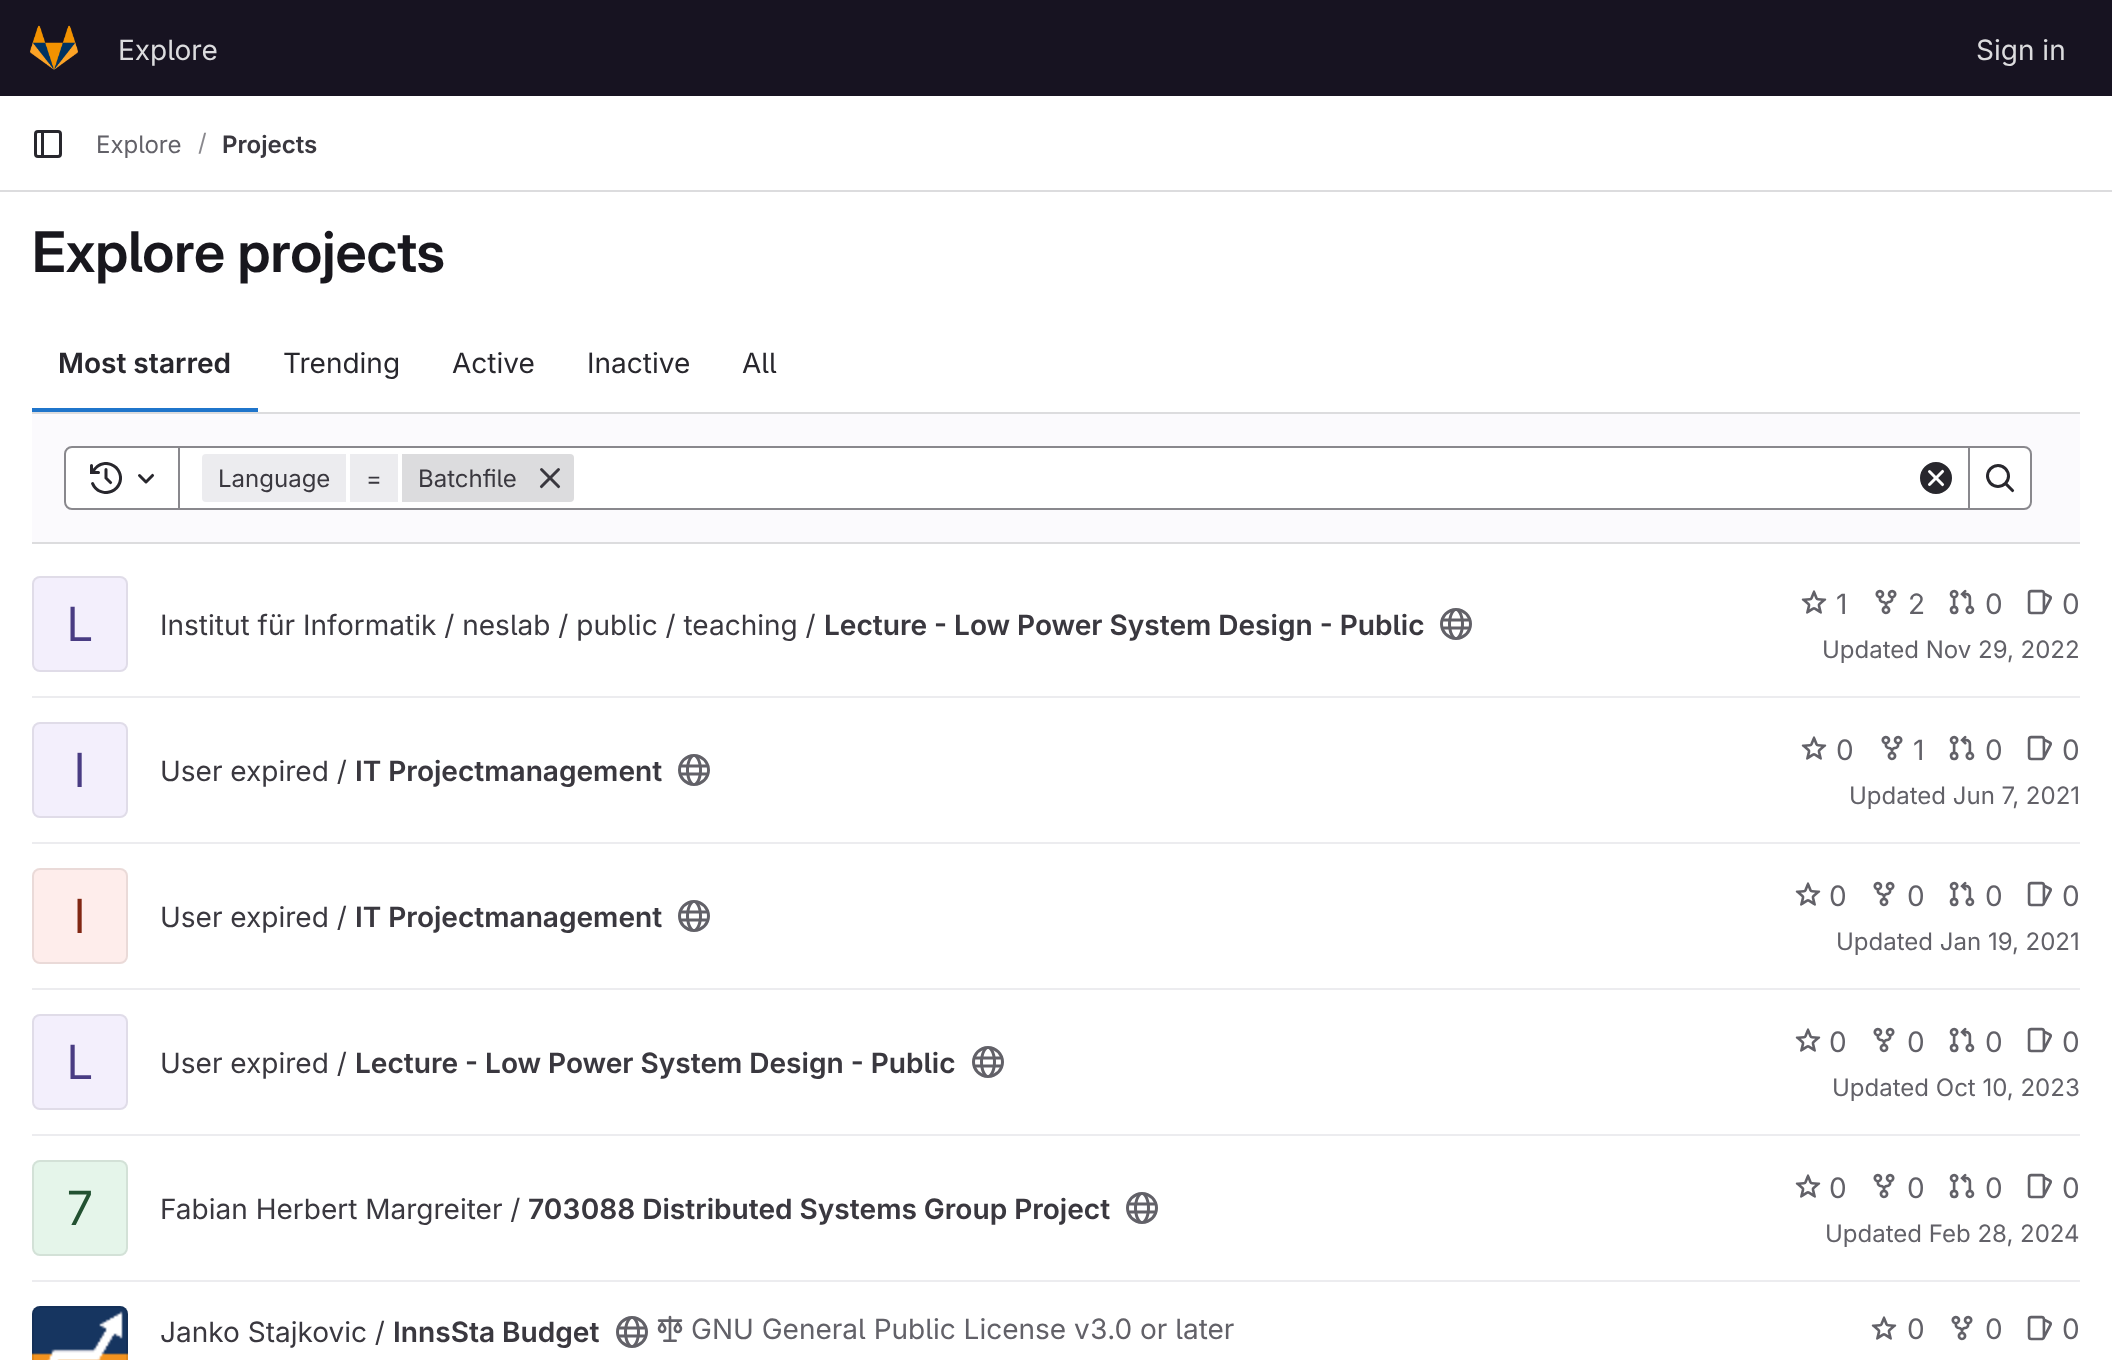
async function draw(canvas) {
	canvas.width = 2112;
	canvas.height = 1360;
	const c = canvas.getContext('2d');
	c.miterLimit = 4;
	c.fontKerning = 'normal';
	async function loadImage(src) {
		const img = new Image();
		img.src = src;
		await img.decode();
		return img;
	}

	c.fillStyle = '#fff';
	c.fillRect(0, 0, 2112, 1360);
	c.fillStyle = '#171321';
	c.fillRect(0, 0, 2112, 96);
	c.drawImage(await loadImage('img1.png'), 30, 25, 48, 45);
	c.font = '28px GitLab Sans';
	c.fillStyle = '#dcdcde';
	c.fillText('Explore', 118, 60);
	c.fillText('Sign in', 1976, 60);
	c.fillRect(0, 190, 2112, 2);
	c.drawImage(await loadImage('img2.png'), 34, 130, 28, 28);
	c.font = '24px GitLab Sans';
	c.fillStyle = '#626168';
	c.fillText('Explore', 96, 153);
	c.fillStyle = '#89888d';
	c.fillText('/', 198, 151);
	c.font = '600 24px "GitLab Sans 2"';
	c.fillStyle = '#3a383f';
	c.fillText('Projects', 222, 153);
	c.font = '600 56px GitLab Sans';
	c.fillStyle = '#18171d';
	c.fillText('Explore projects', 32, 272);
	c.font = '600 28px "GitLab Sans 2"';
	c.fillStyle = '#28272d';
	c.fillText('Most starred', 58, 373);
	c.fillStyle = '#1f75cb';
	c.fillRect(32, 408, 226, 4);
	c.font = '28px GitLab Sans';
	c.fillStyle = '#28272d';
	for (const [text, x, y] of [
		['Trending', 283, 373],
		['Active', 452, 373],
		['Inactive', 587, 373],
		['All', 742, 373],
	]) {
		c.fillText(text, x, y);
	}
	for (const [x, y, w, h, color] of [
		[32, 414, 2048, 128, '#fbfafd'],
		[32, 412, 2048, 2, '#dcdcde'],
		[32, 542, 2048, 2, '#dcdcde'],
	]) {
		c.fillStyle = color;
		c.fillRect(x, y, w, h);
	}
	c.fillStyle = '#fff';
	c.beginPath();
	c.rect(179, 447, 1790, 62);
	c.fill();
	c.strokeStyle = '#89888d';
	c.lineWidth = 2;
	c.stroke();
	c.beginPath();
	c.roundRect(65, 447, 114, 62, [7, 0, 0, 7]);
	c.fill();
	c.stroke();
	c.drawImage(await loadImage('img3.png'), 90, 462, 32, 32);
	c.drawImage(await loadImage('img4.png'), 138, 473, 17, 11);
	c.fillStyle = '#ececef';
	c.beginPath();
	c.roundRect(202, 454, 144, 48, [4, 0, 0, 4]);
	c.fill();
	c.font = '24px GitLab Sans';
	c.fillStyle = '#3a383f';
	c.fillText('Language', 218, 487);
	c.fillStyle = '#ececef';
	c.fillRect(350, 454, 48, 48);
	c.fillStyle = '#3a383f';
	c.fillText('=', 366, 487);
	c.fillStyle = '#dcdcde';
	c.beginPath();
	c.roundRect(402, 454, 172, 48, [0, 4, 4, 0]);
	c.fill();
	c.fillStyle = '#3a383f';
	c.fillText('Batchfile', 418, 487);
	c.drawImage(await loadImage('img5.png'), 539, 468, 22, 21);
	c.drawImage(await loadImage('img6.png'), 1920, 462, 32, 32);
	c.fillStyle = '#fff';
	c.beginPath();
	c.roundRect(1969, 447, 62, 62, [0, 7, 7, 0]);
	c.fill();
	c.stroke();
	c.drawImage(await loadImage('img7.png'), 1986, 464, 29, 29);
	c.fillStyle = '#ececef';
	c.fillRect(32, 696, 2048, 2);
	c.fillStyle = '#f3effc';
	c.beginPath();
	c.roundRect(32, 576, 96, 96, 8);
	c.fill();
	c.beginPath();
	c.roundRect(33, 577, 94, 94, 7);
	c.strokeStyle = '#05050614';
	c.stroke();
	c.font = '47px "GitLab Sans 2"';
	c.fillStyle = '#493c83';
	c.fillText('L', 67, 641);
	c.font = '28px GitLab Sans';
	c.fillStyle = '#3a383f';
	c.fillText('Institut für Informatik / neslab / public / teaching /', 160, 635);
	c.font = '600 28px "GitLab Sans 2"';
	c.fillText('Lecture - Low Power System Design - Public', 824, 635);
	c.drawImage(await loadImage('img8.png'), 1440, 608, 32, 32);
	c.drawImage(await loadImage('img9.png'), 1801, 590, 26, 24);
	c.font = '28px GitLab Sans';
	c.fillStyle = '#626168';
	c.fillText('1', 1836, 614);
	c.drawImage(await loadImage('img10.png'), 1875, 589, 22, 26);
	c.fillText('2', 1908, 614);
	c.drawImage(await loadImage('img11.png'), 1949, 589, 26, 26);
	c.fillText('0', 1985, 614);
	c.drawImage(await loadImage('img12.png'), 2027, 589, 25, 26);
	c.fillText('0', 2062, 614);
	c.font = '24px GitLab Sans';
	c.fillText('Updated Nov 29, 2022', 1822, 658);
	c.fillStyle = '#ececef';
	c.fillRect(32, 842, 2048, 2);
	c.fillStyle = '#f3effc';
	c.beginPath();
	c.roundRect(32, 722, 96, 96, 8);
	c.fill();
	c.beginPath();
	c.roundRect(33, 723, 94, 94, 7);
	c.stroke();
	c.font = '47px "GitLab Sans 2"';
	c.fillStyle = '#493c83';
	c.fillText('I', 74, 787);
	c.font = '28px GitLab Sans';
	c.fillStyle = '#3a383f';
	c.fillText('User expired /', 160, 781);
	c.font = '600 28px "GitLab Sans 2"';
	c.fillText('IT Projectmanagement', 355, 781);
	c.drawImage(await loadImage('img13.png'), 678, 754, 32, 32);
	c.drawImage(await loadImage('img9.png'), 1801, 736, 26, 24);
	c.font = '28px GitLab Sans';
	c.fillStyle = '#626168';
	c.fillText('0', 1836, 760);
	c.drawImage(await loadImage('img14.png'), 1881, 735, 22, 26);
	c.fillText('1', 1913, 760);
	c.drawImage(await loadImage('img11.png'), 1949, 735, 26, 26);
	c.fillText('0', 1985, 760);
	c.drawImage(await loadImage('img12.png'), 2027, 735, 25, 26);
	c.fillText('0', 2062, 760);
	c.font = '24px GitLab Sans';
	c.fillText('Updated Jun 7, 2021', 1849, 804);
	c.fillStyle = '#ececef';
	c.fillRect(32, 988, 2048, 2);
	c.fillStyle = '#feedeb';
	c.beginPath();
	c.roundRect(32, 868, 96, 96, 8);
	c.fill();
	c.beginPath();
	c.roundRect(33, 869, 94, 94, 7);
	c.stroke();
	c.font = '47px "GitLab Sans 2"';
	c.fillStyle = '#812713';
	c.fillText('I', 74, 933);
	c.font = '28px GitLab Sans';
	c.fillStyle = '#3a383f';
	c.fillText('User expired /', 160, 927);
	c.font = '600 28px "GitLab Sans 2"';
	c.fillText('IT Projectmanagement', 355, 927);
	c.drawImage(await loadImage('img8.png'), 678, 900, 32, 32);
	c.drawImage(await loadImage('img15.png'), 1795, 882, 26, 24);
	c.font = '28px GitLab Sans';
	c.fillStyle = '#626168';
	c.fillText('0', 1829, 906);
	c.drawImage(await loadImage('img14.png'), 1873, 881, 22, 26);
	c.fillText('0', 1907, 906);
	c.drawImage(await loadImage('img11.png'), 1949, 881, 26, 26);
	c.fillText('0', 1985, 906);
	c.drawImage(await loadImage('img12.png'), 2027, 881, 25, 26);
	c.fillText('0', 2062, 906);
	c.font = '24px GitLab Sans';
	c.fillText('Updated Jan 19, 2021', 1836, 950);
	c.fillStyle = '#ececef';
	c.fillRect(32, 1134, 2048, 2);
	c.fillStyle = '#f3effc';
	c.beginPath();
	c.roundRect(32, 1014, 96, 96, 8);
	c.fill();
	c.beginPath();
	c.roundRect(33, 1015, 94, 94, 7);
	c.stroke();
	c.font = '47px "GitLab Sans 2"';
	c.fillStyle = '#493c83';
	c.fillText('L', 67, 1079);
	c.font = '28px GitLab Sans';
	c.fillStyle = '#3a383f';
	c.fillText('User expired /', 160, 1073);
	c.font = '600 28px "GitLab Sans 2"';
	c.fillText('Lecture - Low Power System Design - Public', 355, 1073);
	c.drawImage(await loadImage('img8.png'), 972, 1046, 32, 32);
	c.drawImage(await loadImage('img15.png'), 1795, 1028, 26, 24);
	c.font = '28px GitLab Sans';
	c.fillStyle = '#626168';
	c.fillText('0', 1829, 1052);
	c.drawImage(await loadImage('img14.png'), 1873, 1027, 22, 26);
	c.fillText('0', 1907, 1052);
	c.drawImage(await loadImage('img11.png'), 1949, 1027, 26, 26);
	c.fillText('0', 1985, 1052);
	c.drawImage(await loadImage('img12.png'), 2027, 1027, 25, 26);
	c.fillText('0', 2062, 1052);
	c.font = '24px GitLab Sans';
	c.fillText('Updated Oct 10, 2023', 1832, 1096);
	c.fillStyle = '#ececef';
	c.fillRect(32, 1280, 2048, 2);
	c.fillStyle = '#e5f5ea';
	c.beginPath();
	c.roundRect(32, 1160, 96, 96, 8);
	c.fill();
	c.beginPath();
	c.roundRect(33, 1161, 94, 94, 7);
	c.stroke();
	c.font = '47px "GitLab Sans 2"';
	c.fillStyle = '#225131';
	c.fillText('7', 68, 1225);
	c.font = '28px GitLab Sans';
	c.fillStyle = '#3a383f';
	c.fillText('Fabian Herbert Margreiter /', 160, 1219);
	c.font = '600 28px "GitLab Sans 2"';
	c.fillText('703088 Distributed Systems Group Project', 528, 1219);
	c.drawImage(await loadImage('img8.png'), 1126, 1192, 32, 32);
	c.drawImage(await loadImage('img15.png'), 1795, 1174, 26, 24);
	c.font = '28px GitLab Sans';
	c.fillStyle = '#626168';
	c.fillText('0', 1829, 1198);
	c.drawImage(await loadImage('img16.png'), 1873, 1173, 22, 26);
	c.fillText('0', 1907, 1198);
	c.drawImage(await loadImage('img11.png'), 1949, 1173, 26, 26);
	c.fillText('0', 1985, 1198);
	c.drawImage(await loadImage('img12.png'), 2027, 1173, 25, 26);
	c.fillText('0', 2062, 1198);
	c.font = '24px GitLab Sans';
	c.fillText('Updated Feb 28, 2024', 1825, 1242);
	c.drawImage(await loadImage('img17.png'), 32, 1306, 96, 54);
	c.beginPath();
	c.roundRect(33, 1307, 94, 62, 7);
	c.stroke();
	c.font = '28px GitLab Sans';
	c.fillStyle = '#3a383f';
	c.fillText('Janko Stajkovic /', 160, 1342);
	c.font = '600 28px "GitLab Sans 2"';
	c.fillText('InnsSta Budget', 393, 1342);
	c.drawImage(await loadImage('img8.png'), 616, 1316, 32, 32);
	c.drawImage(await loadImage('img18.png'), 657, 1315, 26, 27);
	c.font = '28px GitLab Sans';
	c.fillStyle = '#626168';
	c.fillText('GNU General Public License v3.0 or later', 691, 1339);
	c.drawImage(await loadImage('img9.png'), 1871, 1316, 26, 24);
	c.fillText('0', 1907, 1339);
	c.drawImage(await loadImage('img10.png'), 1951, 1315, 22, 26);
	c.fillText('0', 1985, 1339);
	c.drawImage(await loadImage('img12.png'), 2027, 1315, 25, 26);
	c.fillText('0', 2062, 1339);
}

draw(document.querySelector('canvas'));
